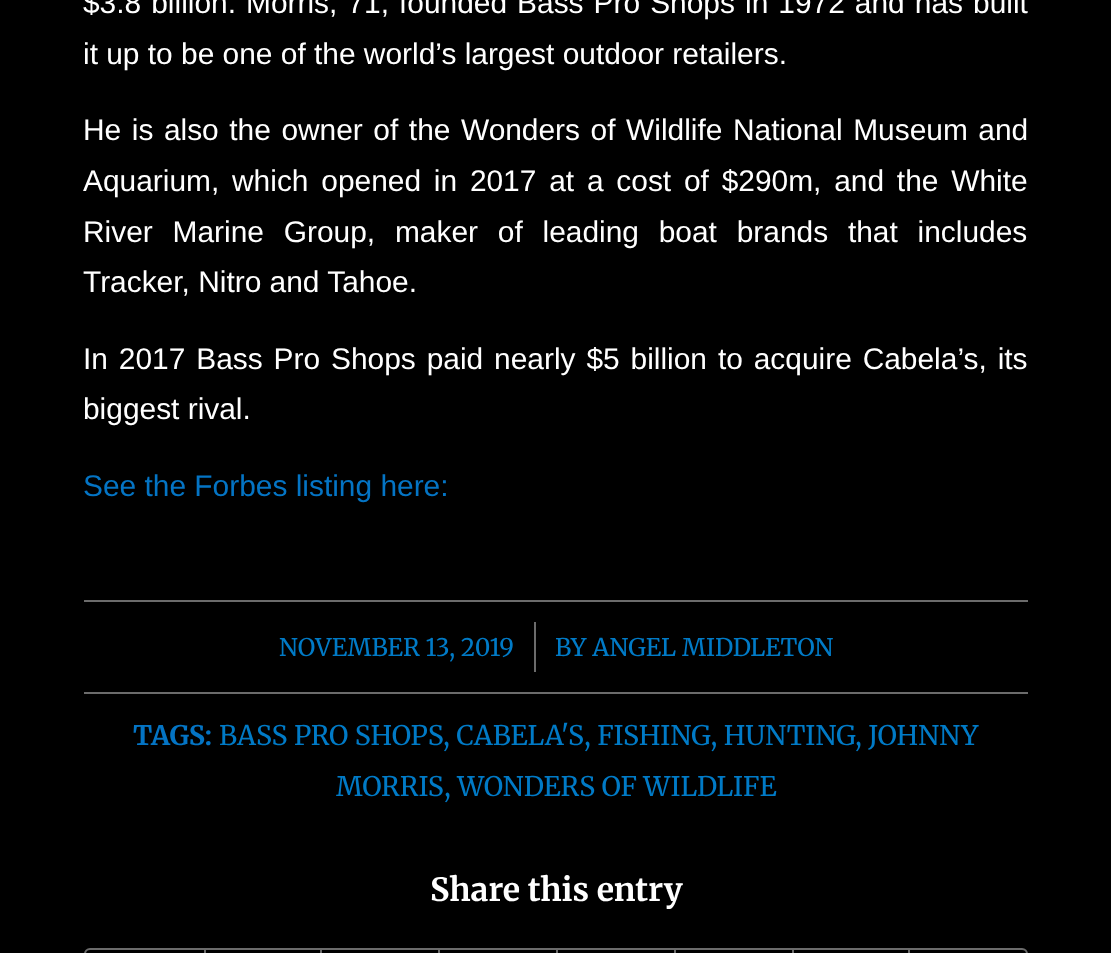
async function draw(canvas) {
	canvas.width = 1111;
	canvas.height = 953;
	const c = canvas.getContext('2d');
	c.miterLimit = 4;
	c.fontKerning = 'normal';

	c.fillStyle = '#000';
	c.fillRect(0, 0, 1111, 953);
	c.wordSpacing = '1.75px';
	c.font = '29.9px Liberation Sans';
	c.fillStyle = '#fff';
	c.fillText('$3.8 billion. Morris, 71, founded Bass Pro Shops in 1972 and has built', 83, 13);
	c.wordSpacing = '0px';
	c.fillText('it up to be one of the world’s largest outdoor retailers.', 83, 64);
	c.wordSpacing = '2.25px';
	c.fillText('He is also the owner of the Wonders of Wildlife National Museum and', 83, 140);
	c.wordSpacing = '4.5px';
	c.fillText('Aquarium, which opened in 2017 at a cost of $290m, and the White', 83, 191);
	c.wordSpacing = '11.5px';
	c.fillText('River Marine Group, maker of leading boat brands that includes', 83, 242);
	c.wordSpacing = '0px';
	c.fillText('Tracker, Nitro and Tahoe.', 83, 292);
	c.wordSpacing = '2.6px';
	c.fillText('In 2017 Bass Pro Shops paid nearly $5 billion to acquire Cabela’s, its', 83, 369);
	c.wordSpacing = '0px';
	c.fillText('biggest rival.', 83, 419);
	c.fillStyle = '#0474c4';
	c.fillText('See the Forbes listing here:', 83, 496);
	c.fillStyle = '#6b6b6b';
	c.fillRect(84, 600, 944, 2);
	c.fillRect(84, 692, 944, 2);
	c.font = '24.25px Merriweather';
	c.fillStyle = '#007ac6';
	c.fillText('NOVEMBER 13, 2019', 279, 656);
	c.fillStyle = '#6b6b6b';
	c.fillRect(534, 622, 2, 50);
	c.fillStyle = '#007ac6';
	c.fillText('BY ANGEL MIDDLETON', 555, 656);
	c.font = 'bold 26.9px Merriweather';
	c.fillStyle = '#0474c4';
	c.fillText('TAGS:', 133, 745);
	c.font = '26.9px Merriweather';
	c.fillStyle = '#007ac6';
	for (const [text, x, y] of [
		['BASS PRO SHOPS', 219, 745],
		[', CABELA\'S', 443, 745],
		[', FISHING, HUNTING', 584, 745],
		[', JOHNNY', 855, 745],
		['MORRIS', 336, 796],
		[', WONDERS OF WILDLIFE', 444, 796],
	]) {
		c.fillText(text, x, y);
	}
	c.font = 'bold 32px Merriweather';
	c.fillStyle = '#fff';
	c.fillText('Share this entry', 430, 901);
	c.beginPath();
	c.roundRect(85, 949, 942, 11, 5);
	c.strokeStyle = '#6b6b6b';
	c.lineWidth = 2;
	c.stroke();
	for (const [x, y, w, h, color] of [
		[204, 950, 2, 3, '#6b6b6b'],
		[320, 950, 2, 3, '#6b6b6b'],
		[438, 950, 2, 3, '#6b6b6b'],
		[556, 950, 2, 3, '#6b6b6b'],
		[674, 950, 2, 3, '#6b6b6b'],
		[792, 950, 2, 3, '#6b6b6b'],
		[908, 950, 2, 3, '#6b6b6b'],
	]) {
		c.fillStyle = color;
		c.fillRect(x, y, w, h);
	}
}

draw(document.querySelector('canvas'));
